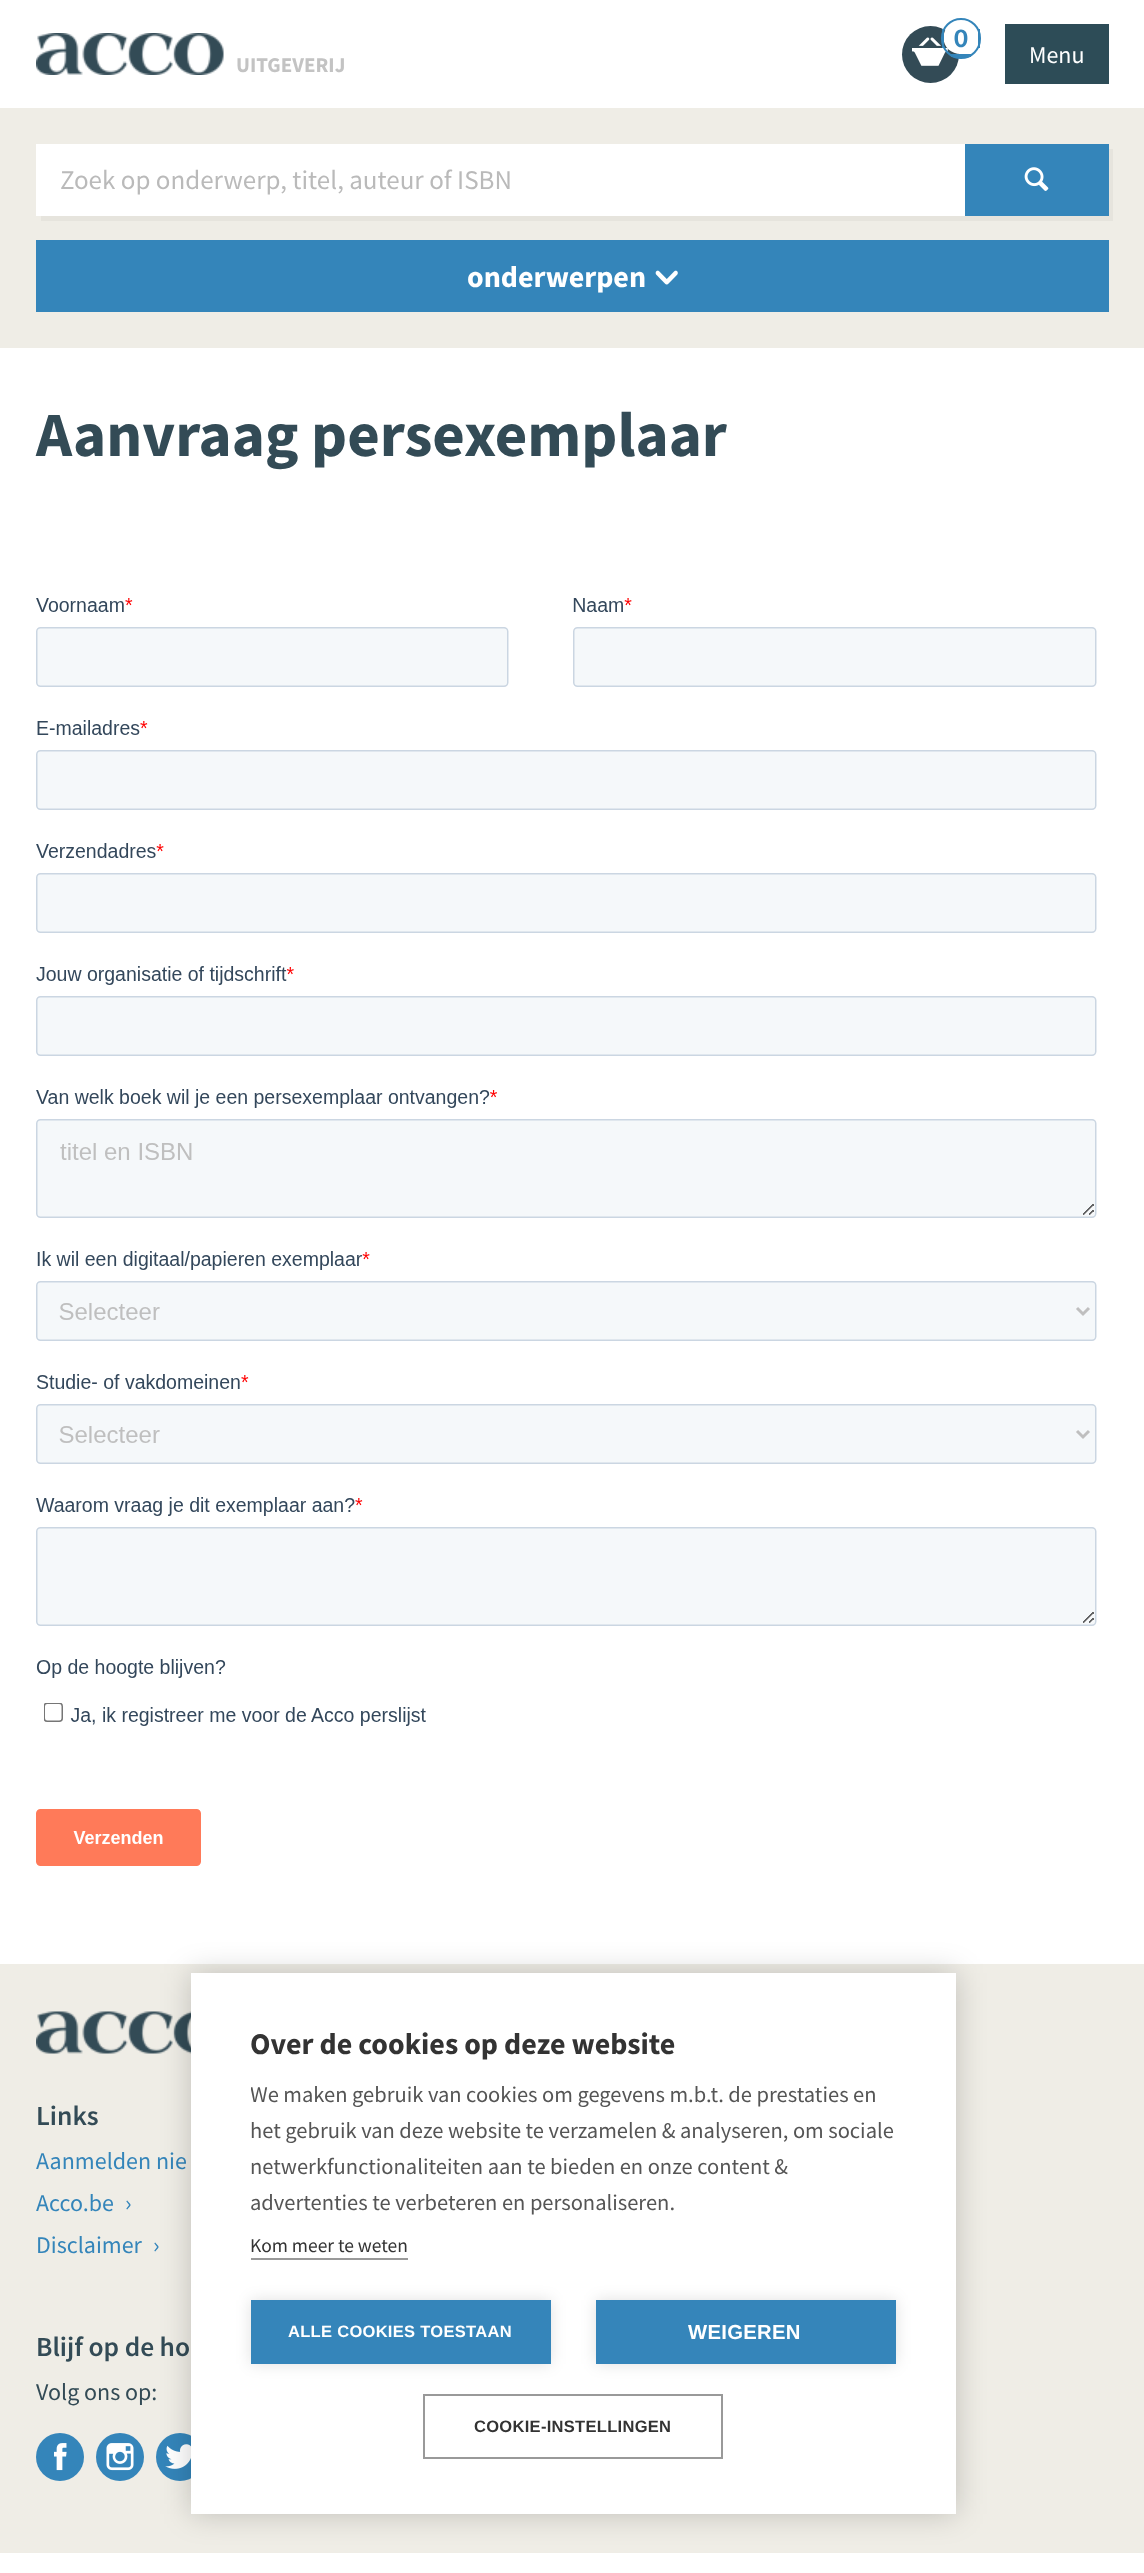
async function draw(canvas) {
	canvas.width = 1144;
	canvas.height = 2573;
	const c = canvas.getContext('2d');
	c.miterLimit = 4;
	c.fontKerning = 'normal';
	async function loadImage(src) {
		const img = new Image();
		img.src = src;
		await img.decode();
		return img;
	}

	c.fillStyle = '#fff';
	c.fillRect(0, 0, 1144, 2573);
	c.fillStyle = '#334b56';
	c.beginPath();
	c.arc(930.5, 54.5, 28.5, 0, 2 * Math.PI);
	c.fill();
	c.drawImage(await loadImage('img1.png'), 912, 37, 36, 29);
	c.fillStyle = '#fff';
	c.beginPath();
	c.moveTo(961, 19.5);
	c.bezierCurveTo(970.5, 19.5, 978, 28, 978, 38);
	c.bezierCurveTo(978, 47, 970.5, 54, 961, 54);
	c.bezierCurveTo(951, 54, 943.5, 47, 943.5, 38);
	c.bezierCurveTo(943.5, 28, 951, 19.5, 961, 19.5);
	c.closePath();
	c.fill();
	c.beginPath();
	c.roundRect(942, 19, 38, 39, 19);
	c.strokeStyle = '#3485ba';
	c.lineWidth = 2;
	c.stroke();
	for (const [x, y, w, h, color] of [
		[978, 29, 2, 19, '#3485ba'],
		[951, 54, 20, 3, '#3485ba'],
		[942, 29, 2, 19, '#3485ba'],
	]) {
		c.fillStyle = color;
		c.fillRect(x, y, w, h);
	}
	c.font = '900 24px Lato';
	c.fillText('0', 954, 47);
	c.fillStyle = '#2d4c57';
	c.fillRect(1005, 24, 104, 60);
	c.font = '24px Source Sans Pro';
	c.fillStyle = '#fff';
	c.fillText('Menu', 1029, 63);
	c.drawImage(await loadImage('img2.png'), 36, 33, 188, 42);
	c.font = 'bold 21px Source Sans Pro';
	c.fillStyle = '#c3c3c3';
	c.fillText('UITGEVERIJ', 236, 72);
	c.fillStyle = '#efede6';
	c.fillRect(0, 108, 1144, 240);
	c.fillStyle = '#e6e4dd';
	c.beginPath();
	c.moveTo(41, 216);
	c.lineTo(41, 221);
	c.lineTo(1113, 221);
	c.lineTo(1113, 149);
	c.lineTo(1108, 149);
	c.lineTo(1108, 216);
	c.closePath();
	c.fill();
	c.fillStyle = '#fff';
	c.fillRect(36, 144, 929, 72);
	c.font = '27px Source Sans Pro';
	c.fillStyle = '#bababa';
	c.fillText('Zoek op onderwerp, titel, auteur of ISBN', 60, 189);
	c.fillStyle = '#3485ba';
	c.fillRect(965, 144, 144, 72);
	c.drawImage(await loadImage('img3.png'), 1024, 167, 25, 24);
	c.fillRect(36, 240, 1073, 72);
	c.font = 'bold 30px Source Sans Pro';
	c.fillStyle = '#fff';
	c.fillText('onderwerpen', 467, 287);
	c.drawImage(await loadImage('img4.png'), 655, 270, 23, 15);
	c.font = 'bold 63px Source Sans Pro';
	c.fillStyle = '#334b56';
	c.fillText('Aanvraag persexemplaar', 36, 456);
	c.drawImage(await loadImage('img5.png'), 36, 598, 1061, 1268);
	c.fillStyle = '#efede6';
	c.fillRect(0, 1964, 1144, 589);
	c.drawImage(await loadImage('img6.png'), 36, 2011, 155, 43);
	c.font = '600 27.5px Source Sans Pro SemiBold';
	c.fillStyle = '#334b56';
	c.fillText('Links', 36, 2125);
	c.font = '24px Source Sans Pro';
	c.fillStyle = '#3485ba';
	for (const [text, x, y] of [
		['Aanmelden nie', 36, 2169],
		['Acco.be', 36, 2211],
		['›', 125, 2211],
		['Disclaimer', 36, 2253],
		['›', 153, 2253],
	]) {
		c.fillText(text, x, y);
	}
	c.font = '600 27.5px Source Sans Pro SemiBold';
	c.fillStyle = '#334b56';
	c.fillText('Blijf op de ho', 36, 2356);
	c.font = '24px Source Sans Pro';
	c.fillText('Volg ons op:', 36, 2400);
	c.fillStyle = '#3485ba';
	c.beginPath();
	c.arc(60, 2457, 24, 0, 2 * Math.PI);
	c.fill();
	c.drawImage(await loadImage('img7.png'), 54, 2443, 13, 28);
	c.beginPath();
	c.arc(120, 2457, 24, 0, 2 * Math.PI);
	c.fill();
	c.drawImage(await loadImage('img8.png'), 106, 2443, 28, 28);
	c.beginPath();
	c.arc(180, 2457, 24, 0, 2 * Math.PI);
	c.fill();
	c.drawImage(await loadImage('img9.png'), 165, 2444, 26, 25);
	c.fillStyle = '#00000033';
	c.filter = 'blur(15px)';
	c.beginPath();
	c.rect(191, 1973, 765, 541);
	c.fill();
	c.filter = 'none';
	c.fillStyle = '#fff';
	c.fillRect(191, 1973, 765, 541);
	c.font = 'bold 30px Source Sans Pro';
	c.fillStyle = '#333';
	c.fillText('Over de cookies op deze website', 250, 2054);
	c.save();
	c.beginPath();
	c.rect(251, 2028, 645, 272);
	c.clip();
	c.font = '22.5px Source Sans Pro';
	c.fillStyle = '#555';
	c.fillText('We maken gebruik van cookies om gegevens m.b.t. de prestaties en', 250, 2102);
	c.restore();
	c.font = '22.5px Source Sans Pro';
	c.fillStyle = '#555';
	for (const [text, x, y] of [
		['het gebruik van deze website te verzamelen & analyseren, om sociale', 250, 2138],
		['netwerkfunctionaliteiten aan te bieden en onze content &', 250, 2174],
		['advertenties te verbeteren en personaliseren.', 250, 2210],
	]) {
		c.fillText(text, x, y);
	}
	c.font = '19.5px Source Sans Pro';
	c.fillStyle = '#333';
	c.fillText('Kom meer te weten', 250, 2252);
	c.fillStyle = '#999';
	c.fillRect(251, 2258, 157, 2);
	c.fillStyle = '#0000001f';
	c.filter = 'blur(7.5px)';
	c.beginPath();
	c.rect(251, 2300, 300, 64);
	c.fill();
	c.filter = 'none';
	c.fillStyle = '#3585ba';
	c.fillRect(251, 2300, 300, 64);
	c.letterSpacing = '0.3px';
	c.font = 'bold 16.5px Liberation Sans';
	c.fillStyle = '#fff';
	c.fillText('ALLE COOKIES TOESTAAN', 288, 2337);
	c.fillStyle = '#0000001f';
	c.filter = 'blur(7.5px)';
	c.beginPath();
	c.rect(596, 2300, 300, 64);
	c.fill();
	c.filter = 'none';
	c.fillStyle = '#3585ba';
	c.fillRect(596, 2300, 300, 64);
	c.font = 'bold 20.25px Liberation Sans';
	c.fillStyle = '#fff';
	c.fillText('WEIGEREN', 688, 2339);
	c.strokeStyle = '#999';
	c.strokeRect(424, 2395, 298, 63);
	c.font = 'bold 16.5px Liberation Sans';
	c.fillStyle = '#333';
	c.fillText('COOKIE-INSTELLINGEN', 474, 2432);
}

draw(document.querySelector('canvas'));
